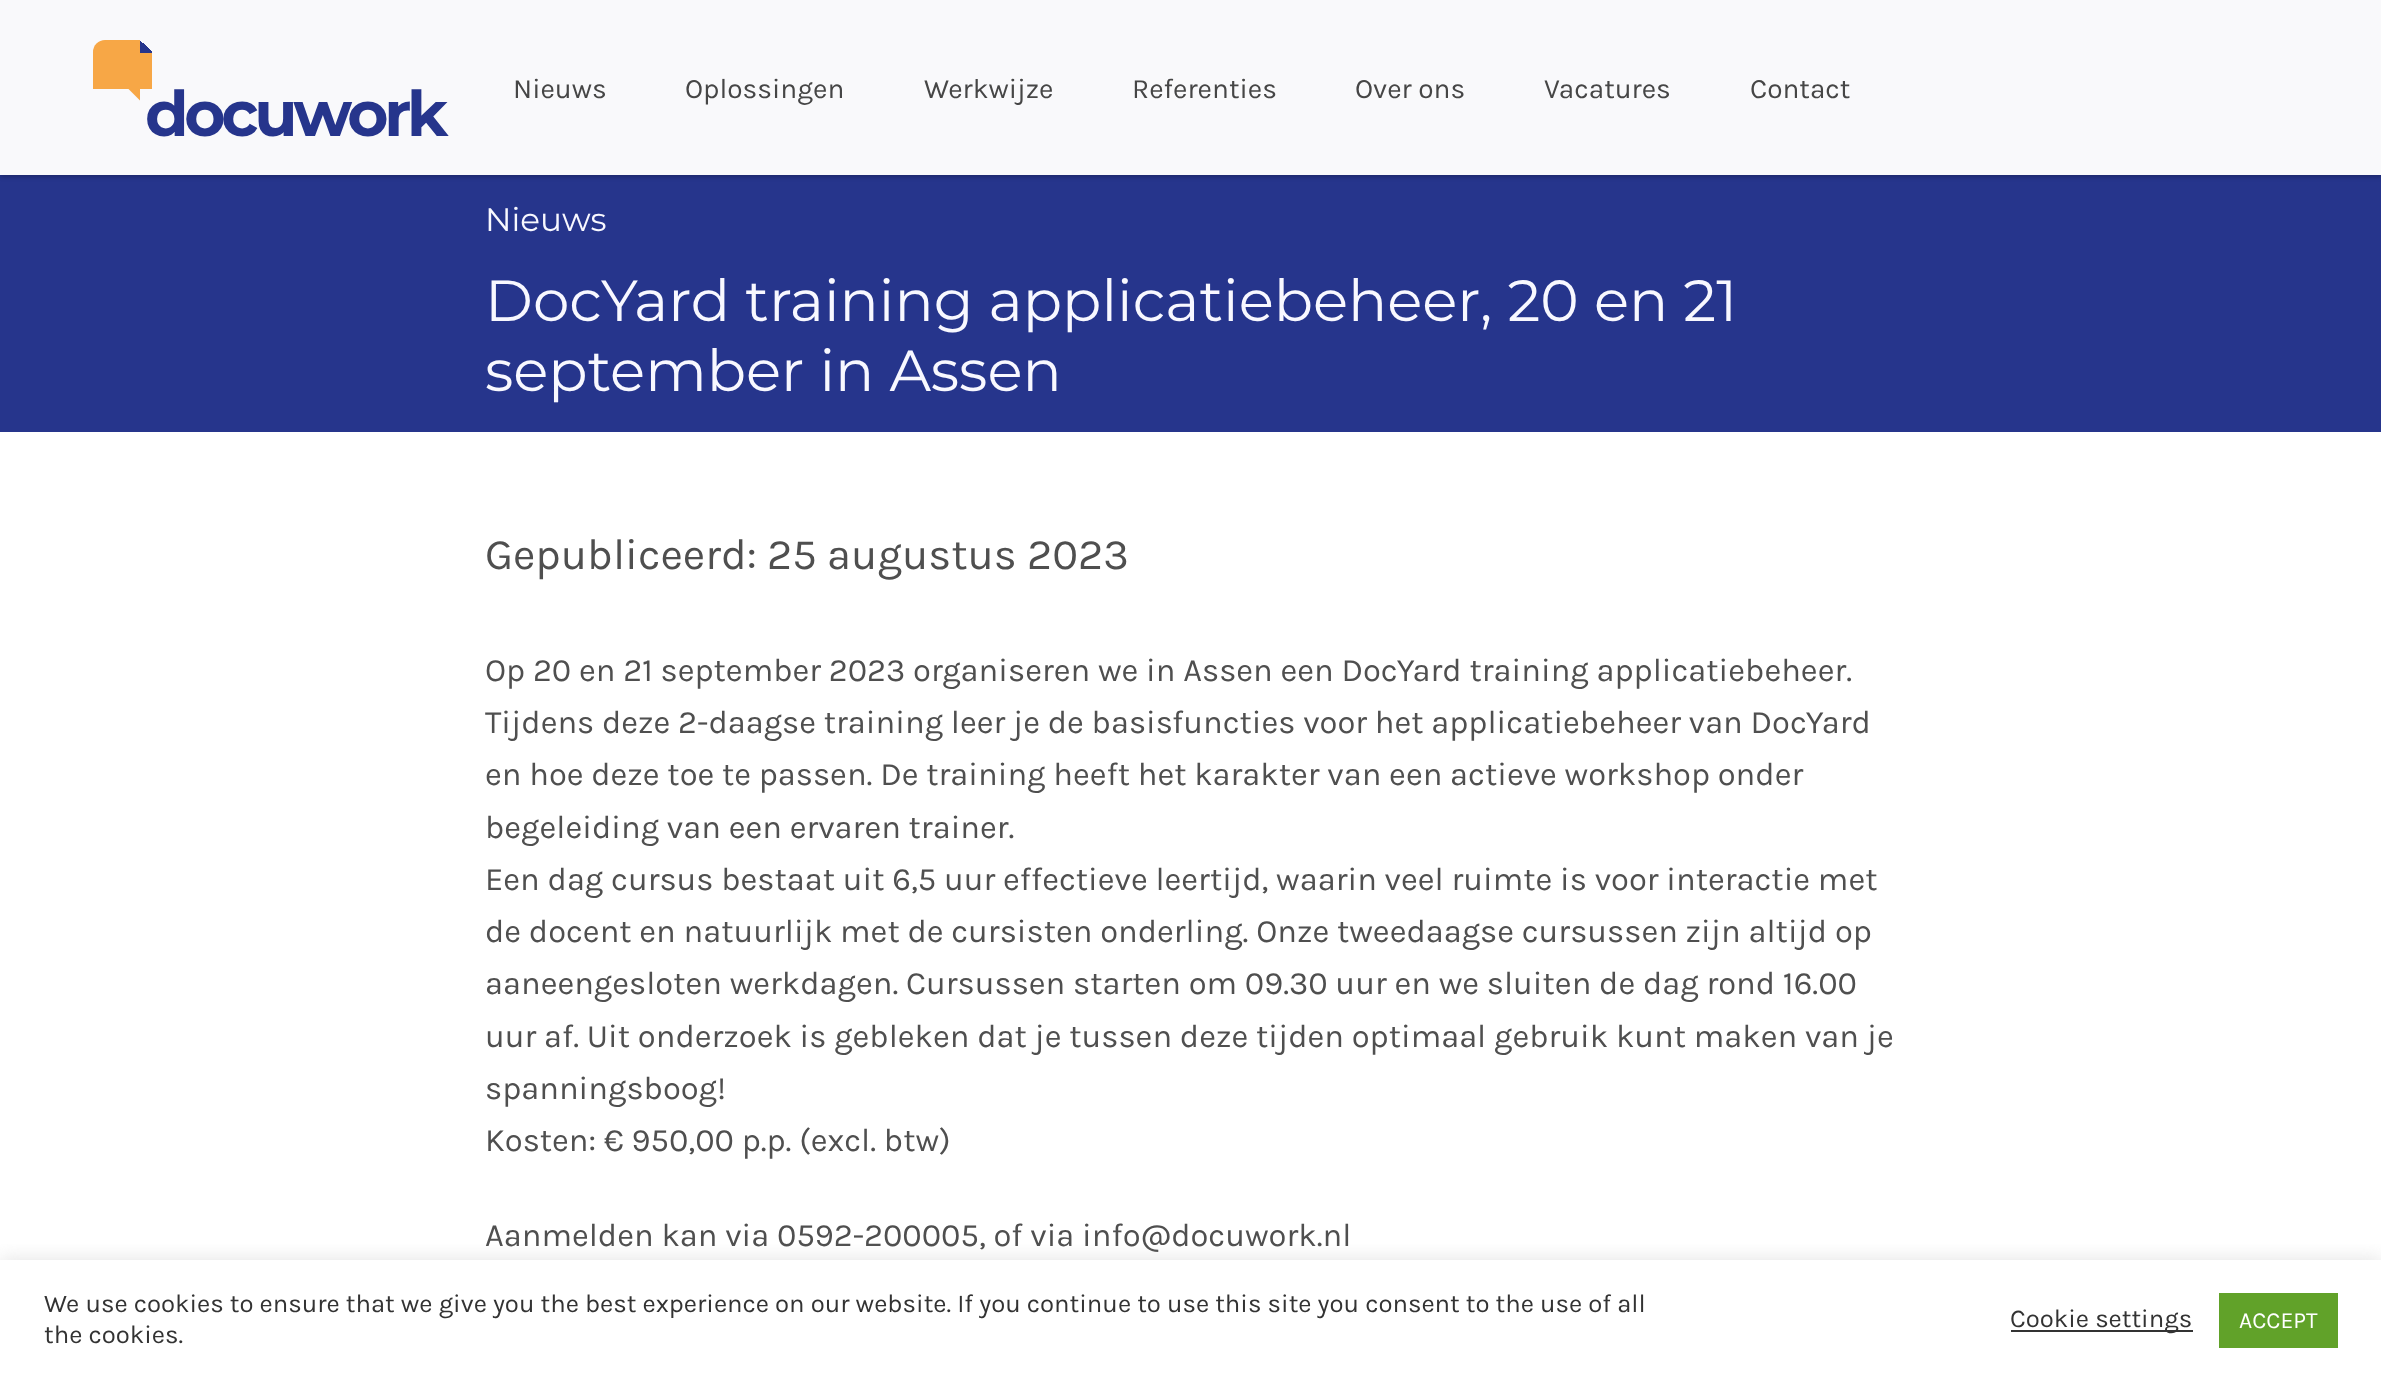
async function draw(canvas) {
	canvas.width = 2381;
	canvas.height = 1380;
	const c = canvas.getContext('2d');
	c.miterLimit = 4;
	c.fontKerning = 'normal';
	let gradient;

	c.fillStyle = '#26358c';
	c.fillRect(0, 0, 2381, 1380);
	c.fillStyle = '#0000003d';
	c.filter = 'blur(2px)';
	c.beginPath();
	c.rect(0, 2, 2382, 175);
	c.fill();
	c.filter = 'none';
	c.fillStyle = '#f9f9fb';
	c.fillRect(0, 0, 2381, 175);
	c.fillStyle = '#f7a746';
	c.fillRect(140, 53, 12, 36);
	c.beginPath();
	c.roundRect(93, 40, 47, 49, [12, 0, 0, 0]);
	c.fill();
	gradient = c.createLinearGradient(152, 39, 140, 52);
	gradient.addColorStop(0.51, '#f9f9fb');
	gradient.addColorStop(0.51, '#26358c');
	c.fillStyle = gradient;
	c.beginPath();
	c.roundRect(140, 40, 12, 13, [0, 12, 0, 0]);
	c.fill();
	c.fillStyle = '#f7a746';
	c.beginPath();
	c.moveTo(128, 88.5);
	c.lineTo(140, 88.5);
	c.lineTo(140, 100.5);
	c.closePath();
	c.fill();
	c.letterSpacing = '-4.25px';
	c.font = 'bold 63px Montserrat';
	c.fillStyle = '#26358c';
	c.fillText('docuwork', 145, 136);
	c.letterSpacing = '0px';
	c.font = '28px Karla';
	c.fillStyle = '#464646';
	for (const [text, x, y] of [
		['Nieuws', 513, 98],
		['Oplossingen', 685, 98],
		['Werkwijze', 924, 98],
		['Referenties', 1132, 98],
		['Over ons', 1355, 98],
		['Vacatures', 1544, 98],
		['Contact', 1750, 98],
	]) {
		c.fillText(text, x, y);
	}
	c.font = '32.65px Montserrat';
	c.fillStyle = '#f8f8ff';
	c.fillText('Nieuws', 485, 231);
	c.font = '58px Montserrat';
	c.fillText('DocYard training applicatiebeheer, 20 en 21', 485, 321);
	c.fillText('september in Assen', 485, 391);
	c.fillStyle = '#fff';
	c.fillRect(0, 432, 2381, 948);
	c.font = '43.5px Karla';
	c.fillStyle = '#4f4f4f';
	c.fillText('Gepubliceerd: 25 augustus 2023', 485, 569);
	c.font = '32.65px Karla';
	for (const [text, x, y] of [
		['Op 20 en 21 september 2023 organiseren we in Assen een DocYard training applicatiebeheer.', 485, 681],
		['Tijdens deze 2-daagse training leer je de basisfuncties voor het applicatiebeheer van DocYard', 485, 733],
		['en hoe deze toe te passen. De training heeft het karakter van een actieve workshop onder', 485, 785],
		['begeleiding van een ervaren trainer.', 485, 838],
		['Een dag cursus bestaat uit 6,5 uur effectieve leertijd, waarin veel ruimte is voor interactie met', 485, 890],
		['de docent en natuurlijk met de cursisten onderling. Onze tweedaagse cursussen zijn altijd op', 485, 942],
		['aaneengesloten werkdagen. Cursussen starten om 09.30 uur en we sluiten de dag rond 16.00', 485, 994],
		['uur af. Uit onderzoek is gebleken dat je tussen deze tijden optimaal gebruik kunt maken van je', 485, 1047],
		['spanningsboog!', 485, 1099],
		['Kosten: € 950,00 p.p. (excl. btw)', 485, 1151],
		['Aanmelden kan via 0592-200005, of via info@docuwork.nl', 485, 1246],
	]) {
		c.fillText(text, x, y);
	}
	c.save();
	c.beginPath();
	c.rect(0, 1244, 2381, 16);
	c.clip();
	c.fillStyle = '#acabab4d';
	c.filter = 'blur(9px)';
	c.beginPath();
	c.rect(0, 1258, 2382, 121);
	c.fill();
	c.filter = 'none';
	c.restore();
	c.font = '25.67px Karla';
	c.fillStyle = '#333';
	c.fillText('We use cookies to ensure that we give you the best experience on our website. If you continue to use this site you consent to the use of all', 44, 1312);
	c.fillText('the cookies.', 44, 1343);
	c.fillRect(2011, 1330, 182, 2);
	c.fillText('Cookie settings', 2010, 1327);
	c.fillStyle = '#61a229';
	c.fillRect(2219, 1293, 119, 55);
	c.font = '23px Karla';
	c.fillStyle = '#fff';
	c.fillText('ACCEPT', 2239, 1328);
}

draw(document.querySelector('canvas'));
